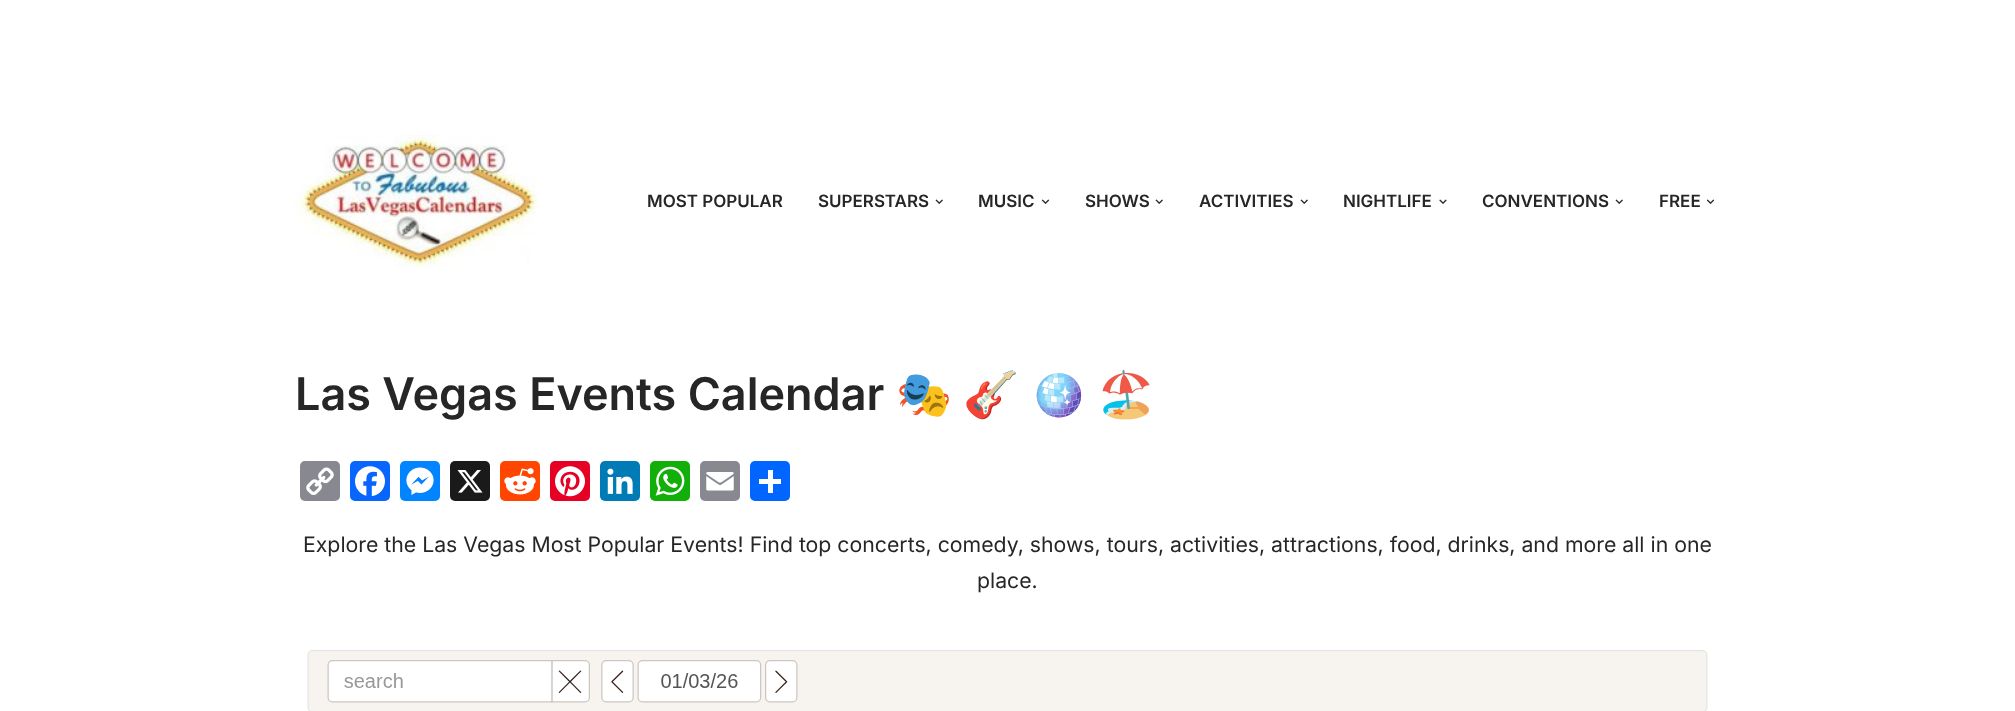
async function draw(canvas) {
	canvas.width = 2015;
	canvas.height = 711;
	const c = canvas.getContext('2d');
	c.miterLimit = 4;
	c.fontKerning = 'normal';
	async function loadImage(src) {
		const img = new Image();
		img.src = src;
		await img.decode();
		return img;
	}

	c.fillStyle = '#fff';
	c.fillRect(0, 0, 2015, 711);
	c.drawImage(await loadImage('img1.png'), 295, 135, 242, 133);
	c.font = '600 17px Inter';
	c.fillStyle = '#272626';
	c.fillText('MOST POPULAR', 647, 207);
	c.fillText('SUPERSTARS', 818, 207);
	c.drawImage(await loadImage('img2.png'), 935, 199, 8, 5);
	c.fillText('MUSIC', 978, 207);
	c.drawImage(await loadImage('img3.png'), 1041, 199, 9, 5);
	c.fillText('SHOWS', 1085, 207);
	c.drawImage(await loadImage('img2.png'), 1155, 199, 8, 5);
	c.fillText('ACTIVITIES', 1199, 207);
	c.drawImage(await loadImage('img2.png'), 1300, 199, 8, 5);
	c.fillText('NIGHTLIFE', 1343, 207);
	c.drawImage(await loadImage('img4.png'), 1439, 199, 8, 5);
	c.fillText('CONVENTIONS', 1482, 207);
	c.drawImage(await loadImage('img2.png'), 1615, 199, 8, 5);
	c.fillText('FREE', 1659, 207);
	c.drawImage(await loadImage('img3.png'), 1706, 199, 9, 5);
	c.font = '600 45px Inter';
	c.fillText('Las Vegas Events Calendar', 295, 410);
	c.font = 'bold 45px Noto Color Emoji';
	for (const [text, x, y] of [
		['🎭', 896, 410],
		['🎸', 963, 410],
		['🪩', 1030, 410],
		['🏖️', 1098, 410],
	]) {
		c.fillText(text, x, y);
	}
	c.fillStyle = '#888990';
	c.beginPath();
	c.roundRect(300, 461, 40, 40, 5);
	c.fill();
	c.drawImage(await loadImage('img5.png'), 306, 467, 28, 28);
	c.fillStyle = '#0866ff';
	c.beginPath();
	c.roundRect(350, 461, 40, 40, 5);
	c.fill();
	c.drawImage(await loadImage('img6.png'), 355, 466, 30, 31);
	c.fillStyle = '#0084ff';
	c.beginPath();
	c.roundRect(400, 461, 40, 40, 5);
	c.fill();
	c.drawImage(await loadImage('img7.png'), 406, 467, 28, 28);
	c.fillStyle = '#1a1a1a';
	c.beginPath();
	c.roundRect(450, 461, 40, 40, 5);
	c.fill();
	c.drawImage(await loadImage('img8.png'), 457, 470, 26, 23);
	c.fillStyle = '#ff4500';
	c.beginPath();
	c.roundRect(500, 461, 40, 40, 5);
	c.fill();
	c.drawImage(await loadImage('img9.png'), 504, 468, 32, 27);
	c.fillStyle = '#e60023';
	c.beginPath();
	c.roundRect(550, 461, 40, 40, 5);
	c.fill();
	c.drawImage(await loadImage('img10.png'), 555, 466, 30, 31);
	c.fillStyle = '#007bb5';
	c.beginPath();
	c.roundRect(600, 461, 40, 40, 5);
	c.fill();
	c.drawImage(await loadImage('img11.png'), 607, 468, 26, 26);
	c.fillStyle = '#12af0a';
	c.beginPath();
	c.roundRect(650, 461, 40, 40, 5);
	c.fill();
	c.drawImage(await loadImage('img12.png'), 655, 466, 30, 30);
	c.fillStyle = '#888990';
	c.beginPath();
	c.roundRect(700, 461, 40, 40, 5);
	c.fill();
	c.drawImage(await loadImage('img13.png'), 706, 472, 28, 19);
	c.fillStyle = '#0166ff';
	c.beginPath();
	c.roundRect(750, 461, 40, 40, 5);
	c.fill();
	c.fillStyle = '#fff';
	c.fillRect(768, 470, 5, 23);
	c.fillRect(759, 479, 22, 5);
	c.font = '21.25px Inter';
	c.fillStyle = '#272626';
	c.fillText('Explore the Las Vegas Most Popular Events! Find top concerts, comedy, shows, tours, activities, attractions, food, drinks, and more all in one', 303, 552);
	c.fillText('place.', 977, 588);
	c.drawImage(await loadImage('img14.png'), 307, 650, 1401, 61);
}

draw(document.querySelector('canvas'));
